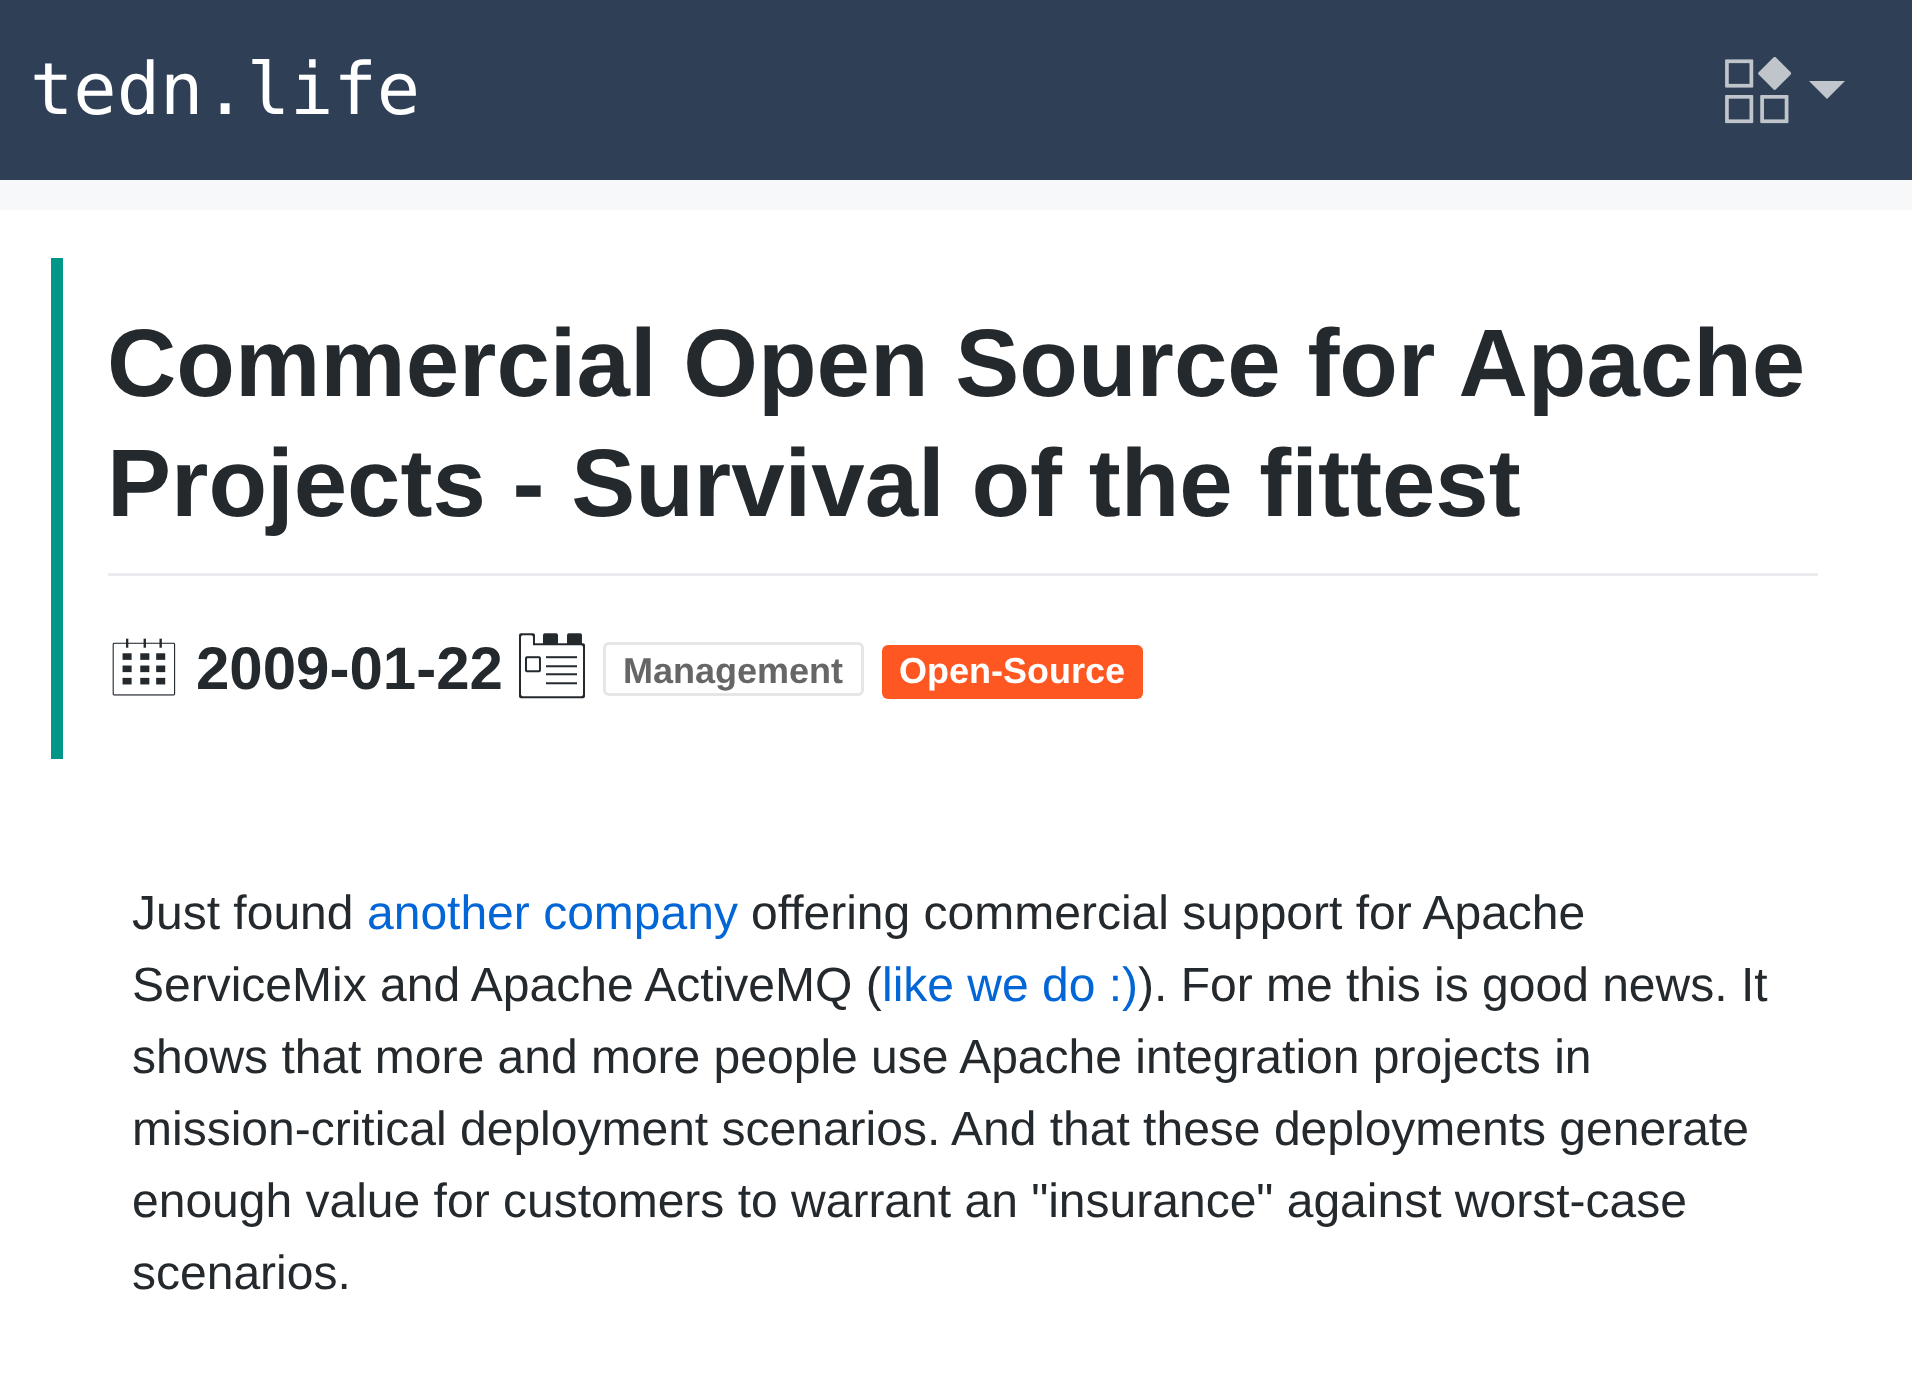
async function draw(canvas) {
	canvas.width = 1912;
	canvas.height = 1384;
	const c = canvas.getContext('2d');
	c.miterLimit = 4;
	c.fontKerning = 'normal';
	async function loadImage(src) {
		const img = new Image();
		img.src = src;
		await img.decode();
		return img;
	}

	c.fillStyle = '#f6f8fa';
	c.fillRect(0, 0, 1912, 1384);
	c.fillStyle = '#2f4056';
	c.fillRect(0, 0, 1912, 180);
	c.font = '72px DejaVu Sans Mono';
	c.fillStyle = '#fff';
	c.fillText('tedn.life', 30, 114);
	c.drawImage(await loadImage('img1.png'), 1725, 57, 67, 67);
	c.fillStyle = '#c1c6cc';
	c.beginPath();
	c.moveTo(1809, 81);
	c.lineTo(1845, 81);
	c.lineTo(1827, 99);
	c.closePath();
	c.fill();
	for (const [x, y, w, h, color] of [
		[0, 210, 1912, 1174, '#fff'],
		[51, 258, 12, 501, '#009688'],
		[108, 573, 1710, 3, '#eaecef'],
	]) {
		c.fillStyle = color;
		c.fillRect(x, y, w, h);
	}
	c.font = 'bold 96px Liberation Sans';
	c.fillStyle = '#24292e';
	c.fillText('Commercial Open Source for Apache', 107, 396);
	c.fillText('Projects - Survival of the fittest', 107, 516);
	c.drawImage(await loadImage('img2.png'), 112, 638, 64, 58);
	c.font = 'bold 60px Liberation Sans';
	c.fillText('2009-01-22', 196, 689);
	c.drawImage(await loadImage('img3.png'), 519, 633, 66, 66);
	c.beginPath();
	c.roundRect(604.5, 643.5, 258, 51, 4.5);
	c.strokeStyle = '#e6e6e6';
	c.lineWidth = 3;
	c.stroke();
	c.font = 'bold 36px Liberation Sans';
	c.fillStyle = '#666';
	c.fillText('Management', 623, 683);
	c.fillStyle = '#ff5722';
	c.beginPath();
	c.roundRect(882, 645, 261, 54, 6);
	c.fill();
	c.fillStyle = '#fff';
	c.fillText('Open-Source', 899, 683);
	c.font = '48px Liberation Sans';
	c.fillStyle = '#24292e';
	c.fillText('Just found', 132, 929);
	c.fillStyle = '#0366d6';
	c.fillText('another company', 367, 929);
	c.fillStyle = '#24292e';
	c.fillText('offering commercial support for Apache', 751, 929);
	c.fillText('ServiceMix and Apache ActiveMQ (', 132, 1001);
	c.fillStyle = '#0366d6';
	c.fillText('like we do :)', 882, 1001);
	c.fillStyle = '#24292e';
	for (const [text, x, y] of [
		['). For me this is good news. It', 1138, 1001],
		['shows that more and more people use Apache integration projects in', 132, 1073],
		['mission-critical deployment scenarios. And that these deployments generate', 132, 1145],
		['enough value for customers to warrant an "insurance" against worst-case', 132, 1217],
		['scenarios.', 132, 1289],
	]) {
		c.fillText(text, x, y);
	}
}

draw(document.querySelector('canvas'));
